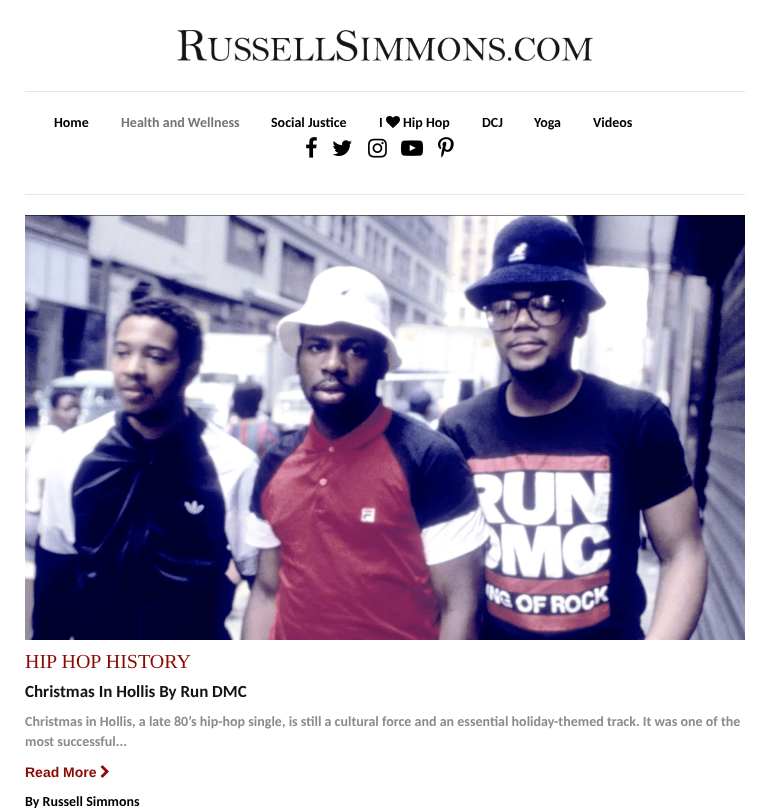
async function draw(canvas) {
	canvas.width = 770;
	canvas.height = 808;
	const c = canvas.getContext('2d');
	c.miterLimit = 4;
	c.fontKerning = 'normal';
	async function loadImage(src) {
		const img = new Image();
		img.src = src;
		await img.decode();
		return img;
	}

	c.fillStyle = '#fff';
	c.fillRect(0, 0, 770, 808);
	c.drawImage(await loadImage('img1.png'), 177, 30, 416, 31);
	c.fillStyle = '#e5e5e5';
	c.fillRect(25, 91, 720, 1);
	c.fillRect(25, 194, 720, 1);
	c.font = 'bold 14px Carlito';
	c.fillStyle = '#000';
	c.fillText('Home', 54, 127);
	c.fillStyle = '#767676';
	c.fillText('Health and Wellness', 121, 127);
	c.fillStyle = '#000';
	c.fillText('Social Justice', 271, 127);
	c.fillText('I', 379, 127);
	c.drawImage(await loadImage('img2.png'), 386, 116, 14, 12);
	for (const [text, x, y] of [
		['Hip Hop', 403, 127],
		['DCJ', 482, 127],
		['Yoga', 534, 127],
		['Videos', 593, 127],
	]) {
		c.fillText(text, x, y);
	}
	c.drawImage(await loadImage('img3.png'), 306, 137, 11, 21);
	c.drawImage(await loadImage('img4.png'), 332, 140, 20, 16);
	c.drawImage(await loadImage('img5.png'), 368, 138, 19, 20);
	c.drawImage(await loadImage('img6.png'), 401, 140, 22, 16);
	c.drawImage(await loadImage('img7.png'), 438, 137, 16, 21);
	c.drawImage(await loadImage('img8.png'), 25, 215, 720, 425);
	c.font = '20px Liberation Serif';
	c.fillStyle = '#8a0b05';
	c.fillText('HIP HOP HISTORY', 25, 668);
	c.font = 'bold 17px Carlito';
	c.fillStyle = '#131313';
	c.fillText('Christmas In Hollis By Run DMC', 25, 697);
	c.font = 'bold 14px Carlito';
	c.fillStyle = '#8c8c8c';
	c.fillText('Christmas in Hollis, a late 80’s hip-hop single, is still a cultural force and an essential holiday-themed track. It was one of the', 25, 726);
	c.fillText('most successful...', 25, 746);
	c.font = 'bold 14px Liberation Sans';
	c.fillStyle = '#8a0b05';
	c.fillText('Read More', 25, 777);
	c.drawImage(await loadImage('img9.png'), 100, 765, 9, 13);
	c.font = 'bold 14px Carlito';
	c.fillStyle = '#000';
	c.fillText('By Russell Simmons', 25, 806);
}

draw(document.querySelector('canvas'));
